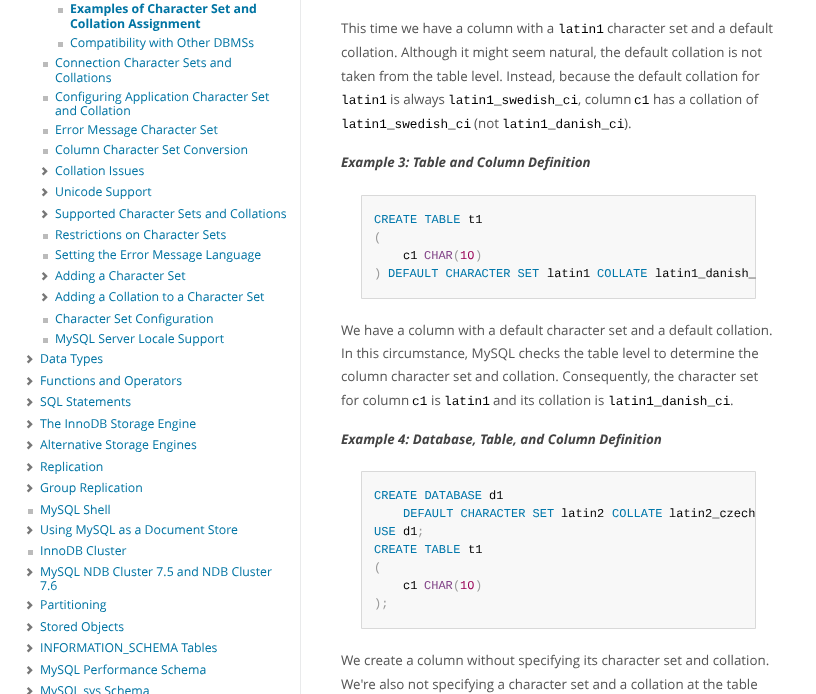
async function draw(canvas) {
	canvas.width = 816;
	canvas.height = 694;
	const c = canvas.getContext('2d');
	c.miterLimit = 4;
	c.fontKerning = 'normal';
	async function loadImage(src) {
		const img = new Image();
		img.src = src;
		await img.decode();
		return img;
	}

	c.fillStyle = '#fff';
	c.fillRect(0, 0, 816, 694);
	c.fillStyle = '#e9eaeb';
	c.fillRect(300, 0, 1, 694);
	c.fillStyle = '#bbb';
	c.fillRect(58, 8, 5, 5);
	c.font = 'bold 12.3px Open Sans';
	c.fillStyle = '#0074a3';
	c.fillText('Examples of Character Set and', 70, 13);
	c.fillText('Collation Assignment', 70, 28);
	c.fillStyle = '#bbb';
	c.fillRect(58, 42, 5, 5);
	c.font = '12.3px Open Sans';
	c.fillStyle = '#0074a3';
	c.fillText('Compatibility with Other DBMSs', 70, 47);
	c.fillStyle = '#bbb';
	c.fillRect(43, 62, 5, 5);
	c.fillStyle = '#0074a3';
	c.fillText('Connection Character Sets and', 55, 67);
	c.fillText('Collations', 55, 82);
	c.fillStyle = '#bbb';
	c.fillRect(43, 96, 5, 5);
	c.fillStyle = '#0074a3';
	c.fillText('Configuring Application Character Set', 55, 101);
	c.fillText('and Collation', 55, 115);
	c.fillStyle = '#bbb';
	c.fillRect(43, 129, 5, 5);
	c.fillStyle = '#0074a3';
	c.fillText('Error Message Character Set', 55, 134);
	c.fillStyle = '#bbb';
	c.fillRect(43, 149, 5, 5);
	c.fillStyle = '#0074a3';
	c.fillText('Column Character Set Conversion', 55, 154);
	c.drawImage(await loadImage('img1.png'), 41, 167, 7, 9);
	c.fillText('Collation Issues', 55, 175);
	c.drawImage(await loadImage('img1.png'), 41, 188, 7, 9);
	c.fillText('Unicode Support', 55, 196);
	c.drawImage(await loadImage('img1.png'), 41, 210, 7, 9);
	c.fillText('Supported Character Sets and Collations', 55, 218);
	c.fillStyle = '#bbb';
	c.fillRect(43, 234, 5, 5);
	c.fillStyle = '#0074a3';
	c.fillText('Restrictions on Character Sets', 55, 239);
	c.fillStyle = '#bbb';
	c.fillRect(43, 254, 5, 5);
	c.fillStyle = '#0074a3';
	c.fillText('Setting the Error Message Language', 55, 259);
	c.drawImage(await loadImage('img1.png'), 41, 272, 7, 9);
	c.fillText('Adding a Character Set', 55, 280);
	c.drawImage(await loadImage('img1.png'), 41, 293, 7, 9);
	c.fillText('Adding a Collation to a Character Set', 55, 301);
	c.fillStyle = '#bbb';
	c.fillRect(43, 318, 5, 5);
	c.fillStyle = '#0074a3';
	c.fillText('Character Set Configuration', 55, 323);
	c.fillStyle = '#bbb';
	c.fillRect(43, 338, 5, 5);
	c.fillStyle = '#0074a3';
	c.fillText('MySQL Server Locale Support', 55, 343);
	c.drawImage(await loadImage('img1.png'), 26, 355, 7, 9);
	c.fillText('Data Types', 40, 363);
	c.drawImage(await loadImage('img1.png'), 26, 377, 7, 9);
	c.fillText('Functions and Operators', 40, 385);
	c.drawImage(await loadImage('img1.png'), 26, 398, 7, 9);
	c.fillText('SQL Statements', 40, 406);
	c.drawImage(await loadImage('img1.png'), 26, 420, 7, 9);
	c.fillText('The InnoDB Storage Engine', 40, 428);
	c.drawImage(await loadImage('img1.png'), 26, 441, 7, 9);
	c.fillText('Alternative Storage Engines', 40, 449);
	c.drawImage(await loadImage('img1.png'), 26, 463, 7, 9);
	c.fillText('Replication', 40, 471);
	c.drawImage(await loadImage('img1.png'), 26, 484, 7, 9);
	c.fillText('Group Replication', 40, 492);
	c.fillStyle = '#bbb';
	c.fillRect(28, 509, 5, 5);
	c.fillStyle = '#0074a3';
	c.fillText('MySQL Shell', 40, 514);
	c.drawImage(await loadImage('img1.png'), 26, 526, 7, 9);
	c.fillText('Using MySQL as a Document Store', 40, 534);
	c.fillStyle = '#bbb';
	c.fillRect(28, 550, 5, 5);
	c.fillStyle = '#0074a3';
	c.fillText('InnoDB Cluster', 40, 555);
	c.drawImage(await loadImage('img1.png'), 26, 568, 7, 9);
	c.fillText('MySQL NDB Cluster 7.5 and NDB Cluster', 40, 576);
	c.fillText('7.6', 40, 590);
	c.drawImage(await loadImage('img1.png'), 26, 601, 7, 9);
	c.fillText('Partitioning', 40, 609);
	c.drawImage(await loadImage('img1.png'), 26, 623, 7, 9);
	c.fillText('Stored Objects', 40, 631);
	c.drawImage(await loadImage('img1.png'), 26, 644, 7, 9);
	c.fillText('INFORMATION_SCHEMA Tables', 40, 652);
	c.drawImage(await loadImage('img1.png'), 26, 666, 7, 9);
	c.fillText('MySQL Performance Schema', 40, 674);
	c.drawImage(await loadImage('img2.png'), 26, 687, 7, 7);
	c.fillText('MySQL sys Schema', 40, 695);
	c.font = '13.35px Open Sans';
	c.fillStyle = '#555';
	c.fillText('This time we have a column with a', 341, 33);
	c.font = '12.75px Liberation Mono';
	c.fillStyle = '#000';
	c.fillText('latin1', 558, 33);
	c.font = '13.35px Open Sans';
	c.fillStyle = '#555';
	for (const [text, x, y] of [
		['character set and a default', 607, 33],
		['collation. Although it might seem natural, the default collation is not', 341, 57],
		['taken from the table level. Instead, because the default collation for', 341, 81],
	]) {
		c.fillText(text, x, y);
	}
	c.font = '12.75px Liberation Mono';
	c.fillStyle = '#000';
	c.fillText('latin1', 341, 104);
	c.font = '13.35px Open Sans';
	c.fillStyle = '#555';
	c.fillText('is always', 390, 104);
	c.font = '12.75px Liberation Mono';
	c.fillStyle = '#000';
	c.fillText('latin1_swedish_ci', 448, 104);
	c.font = '13.35px Open Sans';
	c.fillStyle = '#555';
	c.fillText(', column', 578, 104);
	c.font = '12.75px Liberation Mono';
	c.fillStyle = '#000';
	c.fillText('c1', 634, 104);
	c.font = '13.35px Open Sans';
	c.fillStyle = '#555';
	c.fillText('has a collation of', 653, 104);
	c.font = '12.75px Liberation Mono';
	c.fillStyle = '#000';
	c.fillText('latin1_swedish_ci', 341, 128);
	c.font = '13.35px Open Sans';
	c.fillStyle = '#555';
	c.fillText('(not', 474, 128);
	c.font = '12.75px Liberation Mono';
	c.fillStyle = '#000';
	c.fillText('latin1_danish_ci', 502, 128);
	c.font = '13.35px Open Sans';
	c.fillStyle = '#555';
	c.fillText(').', 624, 128);
	c.font = 'italic bold 13.35px Open Sans';
	c.fillStyle = '#444';
	c.fillText('Example 3: Table and Column', 341, 167);
	c.fillText('Definition', 528, 167);
	c.fillStyle = '#f8f8f8';
	c.beginPath();
	c.rect(361.5, 195.5, 394, 103);
	c.fill();
	c.strokeStyle = '#d9d9d9';
	c.stroke();
	c.font = '12px "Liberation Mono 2"';
	c.fillStyle = '#07a';
	c.fillText('CREATE TABLE', 374, 223);
	c.fillStyle = '#000';
	c.fillText('t1', 468, 223);
	c.fillStyle = '#999';
	c.fillText('(', 374, 241);
	c.fillStyle = '#000';
	c.fillText('c1', 403, 259);
	c.fillStyle = '#834689';
	c.fillText('CHAR', 424, 259);
	c.fillStyle = '#999';
	c.fillText('(', 453, 259);
	c.fillStyle = '#905';
	c.fillText('10', 460, 259);
	c.fillStyle = '#999';
	c.fillText(')', 475, 259);
	c.fillText(')', 374, 277);
	c.fillStyle = '#07a';
	c.fillText('DEFAULT CHARACTER SET', 388, 277);
	c.fillStyle = '#000';
	c.fillText('latin1', 547, 277);
	c.fillStyle = '#07a';
	c.fillText('COLLATE', 597, 277);
	c.fillStyle = '#000';
	c.fillText('latin1_danish_', 655, 277);
	c.font = '13.35px Open Sans';
	c.fillStyle = '#555';
	for (const [text, x, y] of [
		['We have a column with a default character set and a default collation.', 341, 335],
		['In this circumstance, MySQL checks the table level to determine the', 341, 358],
		['column character set and collation. Consequently, the character set', 341, 381],
		['for column', 341, 405],
	]) {
		c.fillText(text, x, y);
	}
	c.font = '12.75px Liberation Mono';
	c.fillStyle = '#000';
	c.fillText('c1', 412, 405);
	c.font = '13.35px Open Sans';
	c.fillStyle = '#555';
	c.fillText('is', 431, 405);
	c.font = '12.75px Liberation Mono';
	c.fillStyle = '#000';
	c.fillText('latin1', 444, 405);
	c.font = '13.35px Open Sans';
	c.fillStyle = '#555';
	c.fillText('and its collation is', 493, 405);
	c.font = '12.75px Liberation Mono';
	c.fillStyle = '#000';
	c.fillText('latin1_danish_ci', 608, 405);
	c.font = '13.35px Open Sans';
	c.fillStyle = '#555';
	c.fillText('.', 730, 405);
	c.font = 'italic bold 13.35px Open Sans';
	c.fillStyle = '#444';
	c.fillText('Example 4: Database, Table, and Column Definition', 341, 444);
	c.fillStyle = '#f8f8f8';
	c.beginPath();
	c.rect(361.5, 471.5, 394, 157);
	c.fill();
	c.stroke();
	c.font = '12px "Liberation Mono 2"';
	c.fillStyle = '#07a';
	c.fillText('CREATE DATABASE', 374, 499);
	c.fillStyle = '#000';
	c.fillText('d1', 489, 499);
	c.fillStyle = '#07a';
	c.fillText('DEFAULT CHARACTER SET', 403, 517);
	c.fillStyle = '#000';
	c.fillText('latin2', 561, 517);
	c.fillStyle = '#07a';
	c.fillText('COLLATE', 612, 517);
	c.fillStyle = '#000';
	c.fillText('latin2_czech', 669, 517);
	c.fillStyle = '#07a';
	c.fillText('USE', 374, 535);
	c.fillStyle = '#000';
	c.fillText('d1', 403, 535);
	c.fillStyle = '#999';
	c.fillText(';', 417, 535);
	c.fillStyle = '#07a';
	c.fillText('CREATE TABLE', 374, 553);
	c.fillStyle = '#000';
	c.fillText('t1', 468, 553);
	c.fillStyle = '#999';
	c.fillText('(', 374, 571);
	c.fillStyle = '#000';
	c.fillText('c1', 403, 589);
	c.fillStyle = '#834689';
	c.fillText('CHAR', 424, 589);
	c.fillStyle = '#999';
	c.fillText('(', 453, 589);
	c.fillStyle = '#905';
	c.fillText('10', 460, 589);
	c.fillStyle = '#999';
	c.fillText(')', 475, 589);
	c.fillText(');', 374, 607);
	c.font = '13.35px Open Sans';
	c.fillStyle = '#555';
	c.fillText('We create a column without specifying its character set and collation.', 341, 665);
	c.fillText('We\'re also not specifying a character set and a collation at the table', 341, 689);
}

draw(document.querySelector('canvas'));
